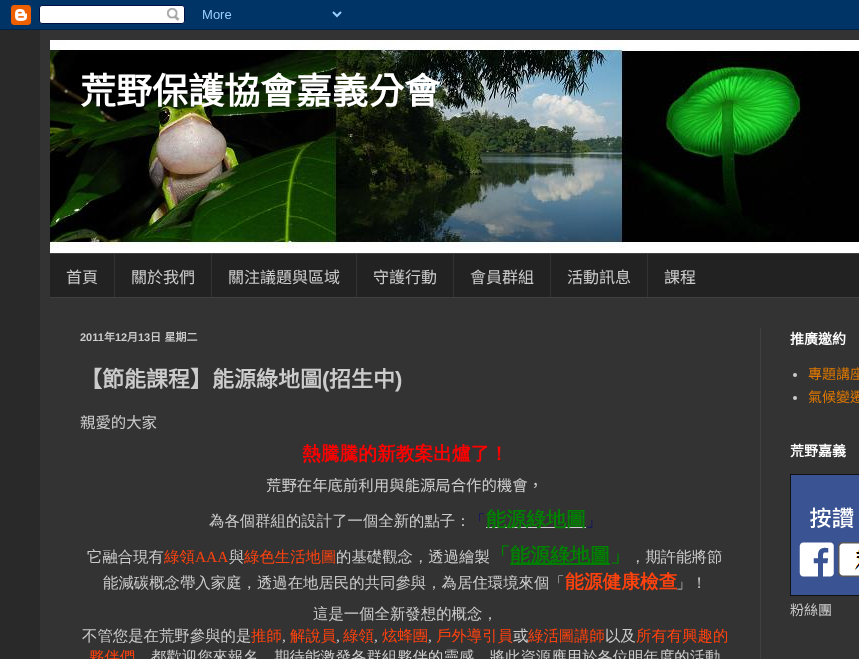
async function draw(canvas) {
	canvas.width = 859;
	canvas.height = 659;
	const c = canvas.getContext('2d');
	c.miterLimit = 4;
	c.fontKerning = 'normal';
	async function loadImage(src) {
		const img = new Image();
		img.src = src;
		await img.decode();
		return img;
	}

	c.fillStyle = '#292929';
	c.fillRect(0, 0, 859, 659);
	c.drawImage(await loadImage('img1.png'), 0, 0, 859, 30);
	c.fillStyle = '#333';
	c.fillRect(40, 30, 819, 629);
	c.drawImage(await loadImage('img2.png'), 50, 40, 809, 213);
	c.font = 'bold 36px Noto Sans CJK TC';
	c.fillStyle = '#fff';
	c.fillText('荒野保護協會嘉義分會', 80, 104);
	for (const [x, y, w, h, color] of [
		[50, 254, 809, 43, '#222'],
		[50, 253, 809, 1, '#404040'],
		[50, 297, 809, 1, '#404040'],
	]) {
		c.fillStyle = color;
		c.fillRect(x, y, w, h);
	}
	c.font = '16px Noto Sans CJK TC';
	c.fillStyle = '#ccc';
	c.fillText('首頁', 66, 283);
	c.fillStyle = '#333';
	c.fillRect(114, 254, 1, 43);
	c.fillStyle = '#ccc';
	c.fillText('關於我們', 131, 283);
	c.fillStyle = '#333';
	c.fillRect(211, 254, 1, 43);
	c.fillStyle = '#ccc';
	c.fillText('關注議題與區域', 228, 283);
	c.fillStyle = '#333';
	c.fillRect(356, 254, 1, 43);
	c.fillStyle = '#ccc';
	c.fillText('守護行動', 373, 283);
	c.fillStyle = '#333';
	c.fillRect(453, 254, 1, 43);
	c.fillStyle = '#ccc';
	c.fillText('會員群組', 470, 283);
	c.fillStyle = '#333';
	c.fillRect(550, 254, 1, 43);
	c.fillStyle = '#ccc';
	c.fillText('活動訊息', 567, 283);
	c.fillStyle = '#333';
	c.fillRect(647, 254, 1, 43);
	c.fillStyle = '#ccc';
	c.fillText('課程', 664, 283);
	c.fillStyle = '#404040';
	c.fillRect(760, 328, 1, 331);
	c.font = 'bold 11px Liberation Sans';
	c.fillStyle = '#ccc';
	c.fillText('2011', 80, 341);
	c.font = 'bold 11px Noto Sans CJK TC';
	c.fillText('年', 104, 341);
	c.font = 'bold 11px Liberation Sans';
	c.fillText('12', 115, 341);
	c.font = 'bold 11px Noto Sans CJK TC';
	c.fillText('月', 127, 341);
	c.font = 'bold 11px Liberation Sans';
	c.fillText('13', 138, 341);
	c.wordSpacing = '1px';
	c.font = 'bold 11px Noto Sans CJK TC';
	c.fillText('日 星期二', 150, 341);
	c.wordSpacing = '0px';
	c.font = 'bold 22px Noto Sans CJK TC';
	c.fillText('【節能課程】能源綠地圖', 80, 387);
	c.font = 'bold 22px Liberation Sans';
	c.fillText('(', 322, 387);
	c.font = 'bold 22px Noto Sans CJK TC';
	c.fillText('招生中', 329, 387);
	c.font = 'bold 22px Liberation Sans';
	c.fillText(')', 395, 387);
	c.font = '15.4px Noto Sans CJK TC';
	c.fillText('親愛的大家', 80, 428);
	c.font = 'bold 18.75px WenQuanYi Zen Hei';
	c.fillStyle = '#f00';
	c.fillText('熱騰騰的新教案出爐了！', 302, 460);
	c.font = '15.4px Noto Sans CJK TC';
	c.fillStyle = '#ccc';
	c.fillText('荒野在年底前利用與能源局合作的機會，', 266, 491);
	c.font = '500 15.4px WenQuanYi Zen Hei';
	c.fillText('為各個群組的設計了一個全新的點子：', 209, 526);
	c.fillStyle = '#000080';
	c.fillText('「', 470, 526);
	c.fillStyle = '#ccc';
	c.fillRect(486, 527, 100, 1);
	c.font = 'bold 20px WenQuanYi Zen Hei';
	c.fillStyle = '#008000';
	c.fillText('能源綠地圖', 486, 526);
	c.font = '500 15.4px WenQuanYi Zen Hei';
	c.fillStyle = '#000080';
	c.fillText('」', 586, 526);
	c.fillStyle = '#ccc';
	c.fillText('它融合現有', 87, 562);
	c.fillStyle = '#ff420e';
	c.fillText('綠領', 164, 562);
	c.font = '15.4px Liberation Serif';
	c.fillText('AAA', 195, 562);
	c.font = '500 15.4px WenQuanYi Zen Hei';
	c.fillStyle = '#ccc';
	c.fillText('與', 229, 562);
	c.fillStyle = '#ff420e';
	c.fillText('綠色生活地圖', 244, 562);
	c.fillStyle = '#ccc';
	c.fillText('的基礎觀念，透過繪製', 336, 562);
	c.font = 'bold 20px WenQuanYi Zen Hei';
	c.fillStyle = '#008000';
	c.fillText('「', 490, 562);
	c.fillRect(510, 563, 100, 2);
	c.fillText('能源綠地圖」', 510, 562);
	c.font = '500 15.4px WenQuanYi Zen Hei';
	c.fillStyle = '#ccc';
	c.fillText('，期許能將節', 630, 562);
	c.fillText('能減碳概念帶入家庭，透過在地居民的共同參與，為居住環境來個「', 103, 588);
	c.font = 'bold 18.75px WenQuanYi Zen Hei';
	c.fillStyle = '#ff420e';
	c.fillText('能源健康檢查', 565, 588);
	c.font = '500 15.4px WenQuanYi Zen Hei';
	c.fillStyle = '#ccc';
	for (const [text, x, y] of [
		['」！', 676, 588],
		['這是一個全新發想的概念，', 313, 619],
		['不管您是在荒野參與的是', 82, 641],
	]) {
		c.fillText(text, x, y);
	}
	c.fillStyle = '#ff420e';
	c.fillText('推師', 251, 641);
	c.font = '15.4px Liberation Serif';
	c.fillStyle = '#ccc';
	c.fillText(',', 282, 641);
	c.font = '500 15.4px WenQuanYi Zen Hei';
	c.fillStyle = '#ff420e';
	c.fillText('解說員', 290, 641);
	c.font = '15.4px Liberation Serif';
	c.fillStyle = '#ccc';
	c.fillText(',', 336, 641);
	c.font = '500 15.4px WenQuanYi Zen Hei';
	c.fillStyle = '#ff420e';
	c.fillText('綠領', 343, 641);
	c.font = '15.4px Liberation Serif';
	c.fillStyle = '#ccc';
	c.fillText(',', 374, 641);
	c.font = '500 15.4px WenQuanYi Zen Hei';
	c.fillStyle = '#ff420e';
	c.fillText('炫蜂團', 382, 641);
	c.font = '15.4px Liberation Serif';
	c.fillStyle = '#ccc';
	c.fillText(',', 428, 641);
	c.font = '500 15.4px WenQuanYi Zen Hei';
	c.fillStyle = '#ff420e';
	c.fillText('戶外導引員', 436, 641);
	c.fillStyle = '#ccc';
	c.fillText('或', 513, 641);
	c.fillStyle = '#ff420e';
	c.fillText('綠活圖講師', 528, 641);
	c.fillStyle = '#ccc';
	c.fillText('以及', 605, 641);
	c.fillStyle = '#ff420e';
	c.fillText('所有有興趣的', 636, 641);
	c.fillText('夥伴們', 89, 662);
	c.fillStyle = '#ccc';
	c.fillText('都歡迎您來報名，期待能激發各群組夥伴的靈感，將此資源應用於各位明年度的活動', 151, 662);
	c.font = 'bold 14px Noto Sans CJK TC';
	c.fillStyle = '#fff';
	c.fillText('推廣邀約', 790, 344);
	c.fillStyle = '#ccc';
	c.beginPath();
	c.arc(795, 375, 2, 0, 2 * Math.PI);
	c.fill();
	c.font = '14px Noto Sans CJK TC';
	c.fillStyle = '#d70';
	c.fillText('專題講座', 808, 379);
	c.fillStyle = '#ccc';
	c.beginPath();
	c.arc(795, 398, 2, 0, 2 * Math.PI);
	c.fill();
	c.fillStyle = '#d70';
	c.fillText('氣候變遷', 808, 402);
	c.font = 'bold 14px Noto Sans CJK TC';
	c.fillStyle = '#fff';
	c.fillText('荒野嘉義', 790, 456);
	c.fillStyle = '#111';
	c.fillRect(790, 474, 69, 122);
	c.drawImage(await loadImage('img3.png'), 791, 475, 68, 120);
	c.font = '14px Noto Sans CJK TC';
	c.fillStyle = '#ccc';
	c.fillText('粉絲團', 790, 615);
}

draw(document.querySelector('canvas'));
